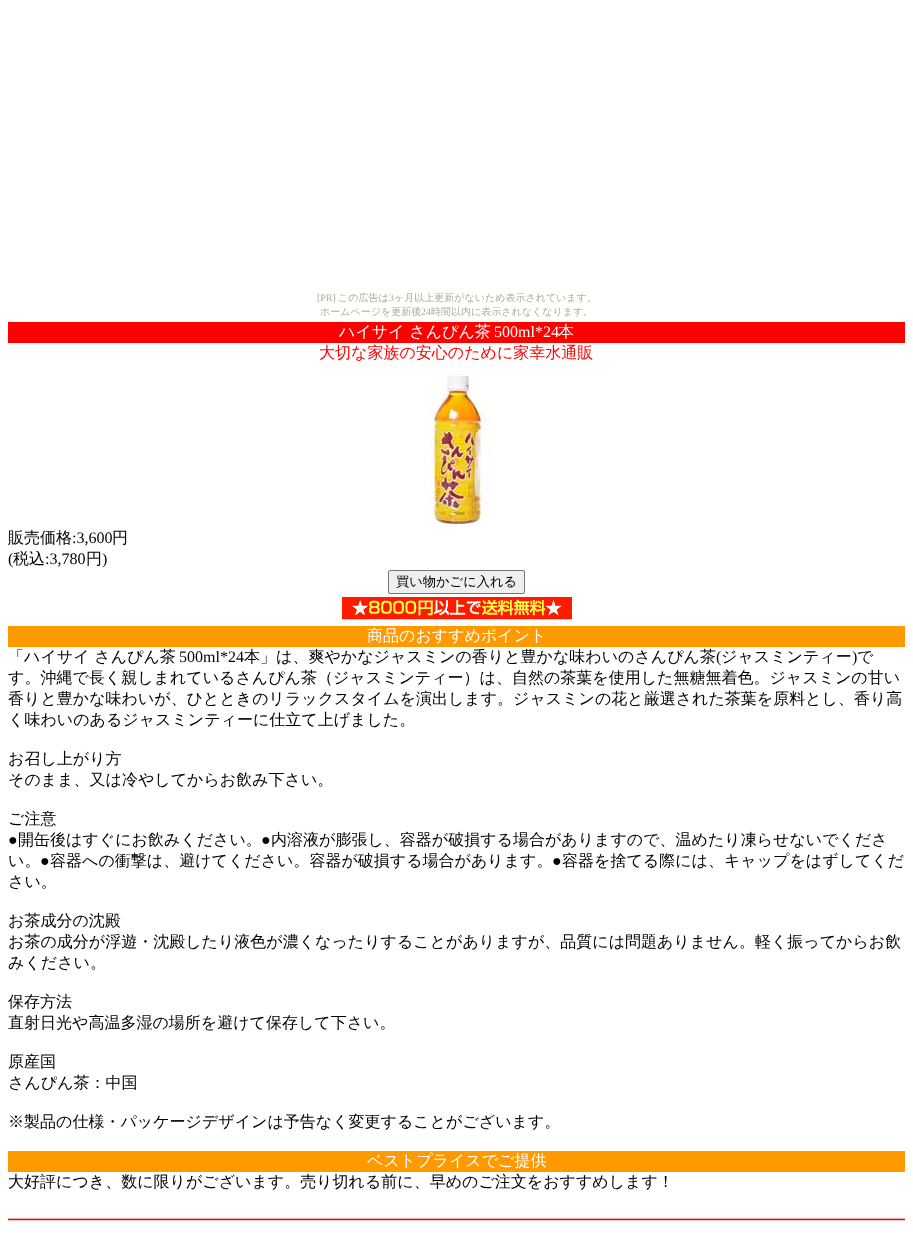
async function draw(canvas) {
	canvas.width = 913;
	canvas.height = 1233;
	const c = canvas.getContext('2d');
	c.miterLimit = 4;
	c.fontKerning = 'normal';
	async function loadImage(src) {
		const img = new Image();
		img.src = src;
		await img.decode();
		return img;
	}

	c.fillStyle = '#fff';
	c.fillRect(0, 0, 913, 1233);
	c.fillStyle = '#fffffc';
	c.fillRect(314, 288, 285, 34);
	c.font = '10px Liberation Serif';
	c.fillStyle = '#aaa';
	c.fillText('[PR]', 317, 301);
	c.font = '500 10px WenQuanYi Zen Hei';
	c.fillText('この広告は', 338, 301);
	c.font = '10px Liberation Serif';
	c.fillText('3', 389, 301);
	c.font = '500 10px WenQuanYi Zen Hei';
	c.fillText('ヶ月以上更新がないため表示されています。', 394, 301);
	c.fillText('ホームページを更新後', 320, 315);
	c.font = '10px Liberation Serif';
	c.fillText('24', 421, 315);
	c.font = '500 10px WenQuanYi Zen Hei';
	c.fillText('時間以内に表示されなくなります。', 431, 315);
	c.fillStyle = '#f00';
	c.fillRect(8, 322, 897, 21);
	c.font = '500 16px WenQuanYi Zen Hei';
	c.fillStyle = '#fff';
	c.fillText('ハイサイ さんぴん茶', 339, 337);
	c.font = '16px Liberation Serif';
	c.fillText('500ml*24', 494, 337);
	c.font = '500 16px WenQuanYi Zen Hei';
	c.fillText('本', 558, 337);
	c.fillStyle = '#f00';
	c.fillText('大切な家族の安心のために家幸水通販', 319, 358);
	c.drawImage(await loadImage('img1.png'), 429, 374, 65, 150);
	c.fillStyle = '#000';
	c.fillText('販売価格', 8, 543);
	c.font = '16px Liberation Serif';
	c.fillText(':3,600', 72, 543);
	c.font = '500 16px WenQuanYi Zen Hei';
	c.fillText('円', 112, 543);
	c.font = '16px Liberation Serif';
	c.fillText('(', 8, 564);
	c.font = '500 16px WenQuanYi Zen Hei';
	c.fillText('税込', 13, 564);
	c.font = '16px Liberation Serif';
	c.fillText(':3,780', 45, 564);
	c.font = '500 16px WenQuanYi Zen Hei';
	c.fillText('円', 86, 564);
	c.font = '16px Liberation Serif';
	c.fillText(')', 102, 564);
	c.fillStyle = '#efefef';
	c.beginPath();
	c.roundRect(388.5, 570.5, 136, 23, 1.5);
	c.fill();
	c.strokeStyle = '#767676';
	c.stroke();
	c.font = '500 13.25px WenQuanYi Zen Hei';
	c.fillStyle = '#000';
	c.fillText('買い物かごに入れる', 396, 586);
	c.drawImage(await loadImage('img2.png'), 342, 597, 230, 23);
	c.fillStyle = '#f90';
	c.fillRect(8, 626, 897, 21);
	c.font = '500 16px WenQuanYi Zen Hei';
	c.fillStyle = '#fff';
	c.fillText('商品のおすすめポイント', 367, 641);
	c.fillStyle = '#000';
	c.fillText('「ハイサイ さんぴん茶', 8, 662);
	c.font = '16px Liberation Serif';
	c.fillText('500ml*24', 179, 662);
	c.font = '500 16px WenQuanYi Zen Hei';
	c.fillText('本」は、爽やかなジャスミンの香りと豊かな味わいのさんぴん茶', 244, 662);
	c.font = '16px Liberation Serif';
	c.fillText('(', 716, 662);
	c.font = '500 16px WenQuanYi Zen Hei';
	c.fillText('ジャスミンティー', 721, 662);
	c.font = '16px Liberation Serif';
	c.fillText(')', 852, 662);
	c.font = '500 16px WenQuanYi Zen Hei';
	for (const [text, x, y] of [
		['で', 857, 662],
		['す。沖縄で長く親しまれているさんぴん茶（ジャスミンティー）は、自然の茶葉を使用した無糖無着色。ジャスミンの甘い', 8, 683],
		['香りと豊かな味わいが、ひとときのリラックスタイムを演出します。ジャスミンの花と厳選された茶葉を原料とし、香り高', 8, 704],
		['く味わいのあるジャスミンティーに仕立て上げました。', 8, 725],
		['お召し上がり方', 8, 764],
		['そのまま、又は冷やしてからお飲み下さい。', 8, 785],
		['ご注意', 8, 824],
	]) {
		c.fillText(text, x, y);
	}
	c.font = '16px Liberation Serif';
	c.fillText('●', 8, 845);
	c.font = '500 16px WenQuanYi Zen Hei';
	c.fillText('開缶後はすぐにお飲みください。', 18, 845);
	c.font = '16px Liberation Serif';
	c.fillText('●', 261, 845);
	c.font = '500 16px WenQuanYi Zen Hei';
	c.fillText('内溶液が膨張し、容器が破損する場合がありますので、温めたり凍らせないでくださ', 271, 845);
	c.fillText('い。', 8, 866);
	c.font = '16px Liberation Serif';
	c.fillText('●', 40, 866);
	c.font = '500 16px WenQuanYi Zen Hei';
	c.fillText('容器への衝撃は、避けてください。容器が破損する場合があります。', 50, 866);
	c.font = '16px Liberation Serif';
	c.fillText('●', 552, 866);
	c.font = '500 16px WenQuanYi Zen Hei';
	for (const [text, x, y] of [
		['容器を捨てる際には、キャップをはずしてくだ', 562, 866],
		['さい。', 8, 887],
		['お茶成分の沈殿', 8, 926],
		['お茶の成分が浮遊・沈殿したり液色が濃くなったりすることがありますが、品質には問題ありません。軽く振ってからお飲', 8, 947],
		['みください。', 8, 968],
		['保存方法', 8, 1007],
		['直射日光や高温多湿の場所を避けて保存して下さい。', 8, 1028],
		['原産国', 8, 1067],
		['さんぴん茶：中国', 8, 1088],
		['※製品の仕様・パッケージデザインは予告なく変更することがございます。', 8, 1127],
	]) {
		c.fillText(text, x, y);
	}
	c.fillStyle = '#f90';
	c.fillRect(8, 1151, 897, 21);
	c.fillStyle = '#fff';
	c.fillText('ベストプライスでご提供', 367, 1166);
	c.fillStyle = '#000';
	c.fillText('大好評につき、数に限りがございます。売り切れる前に、早めのご注文をおすすめします！', 8, 1187);
	c.drawImage(await loadImage('img3.png'), 8, 1218, 897, 4);
}

draw(document.querySelector('canvas'));
